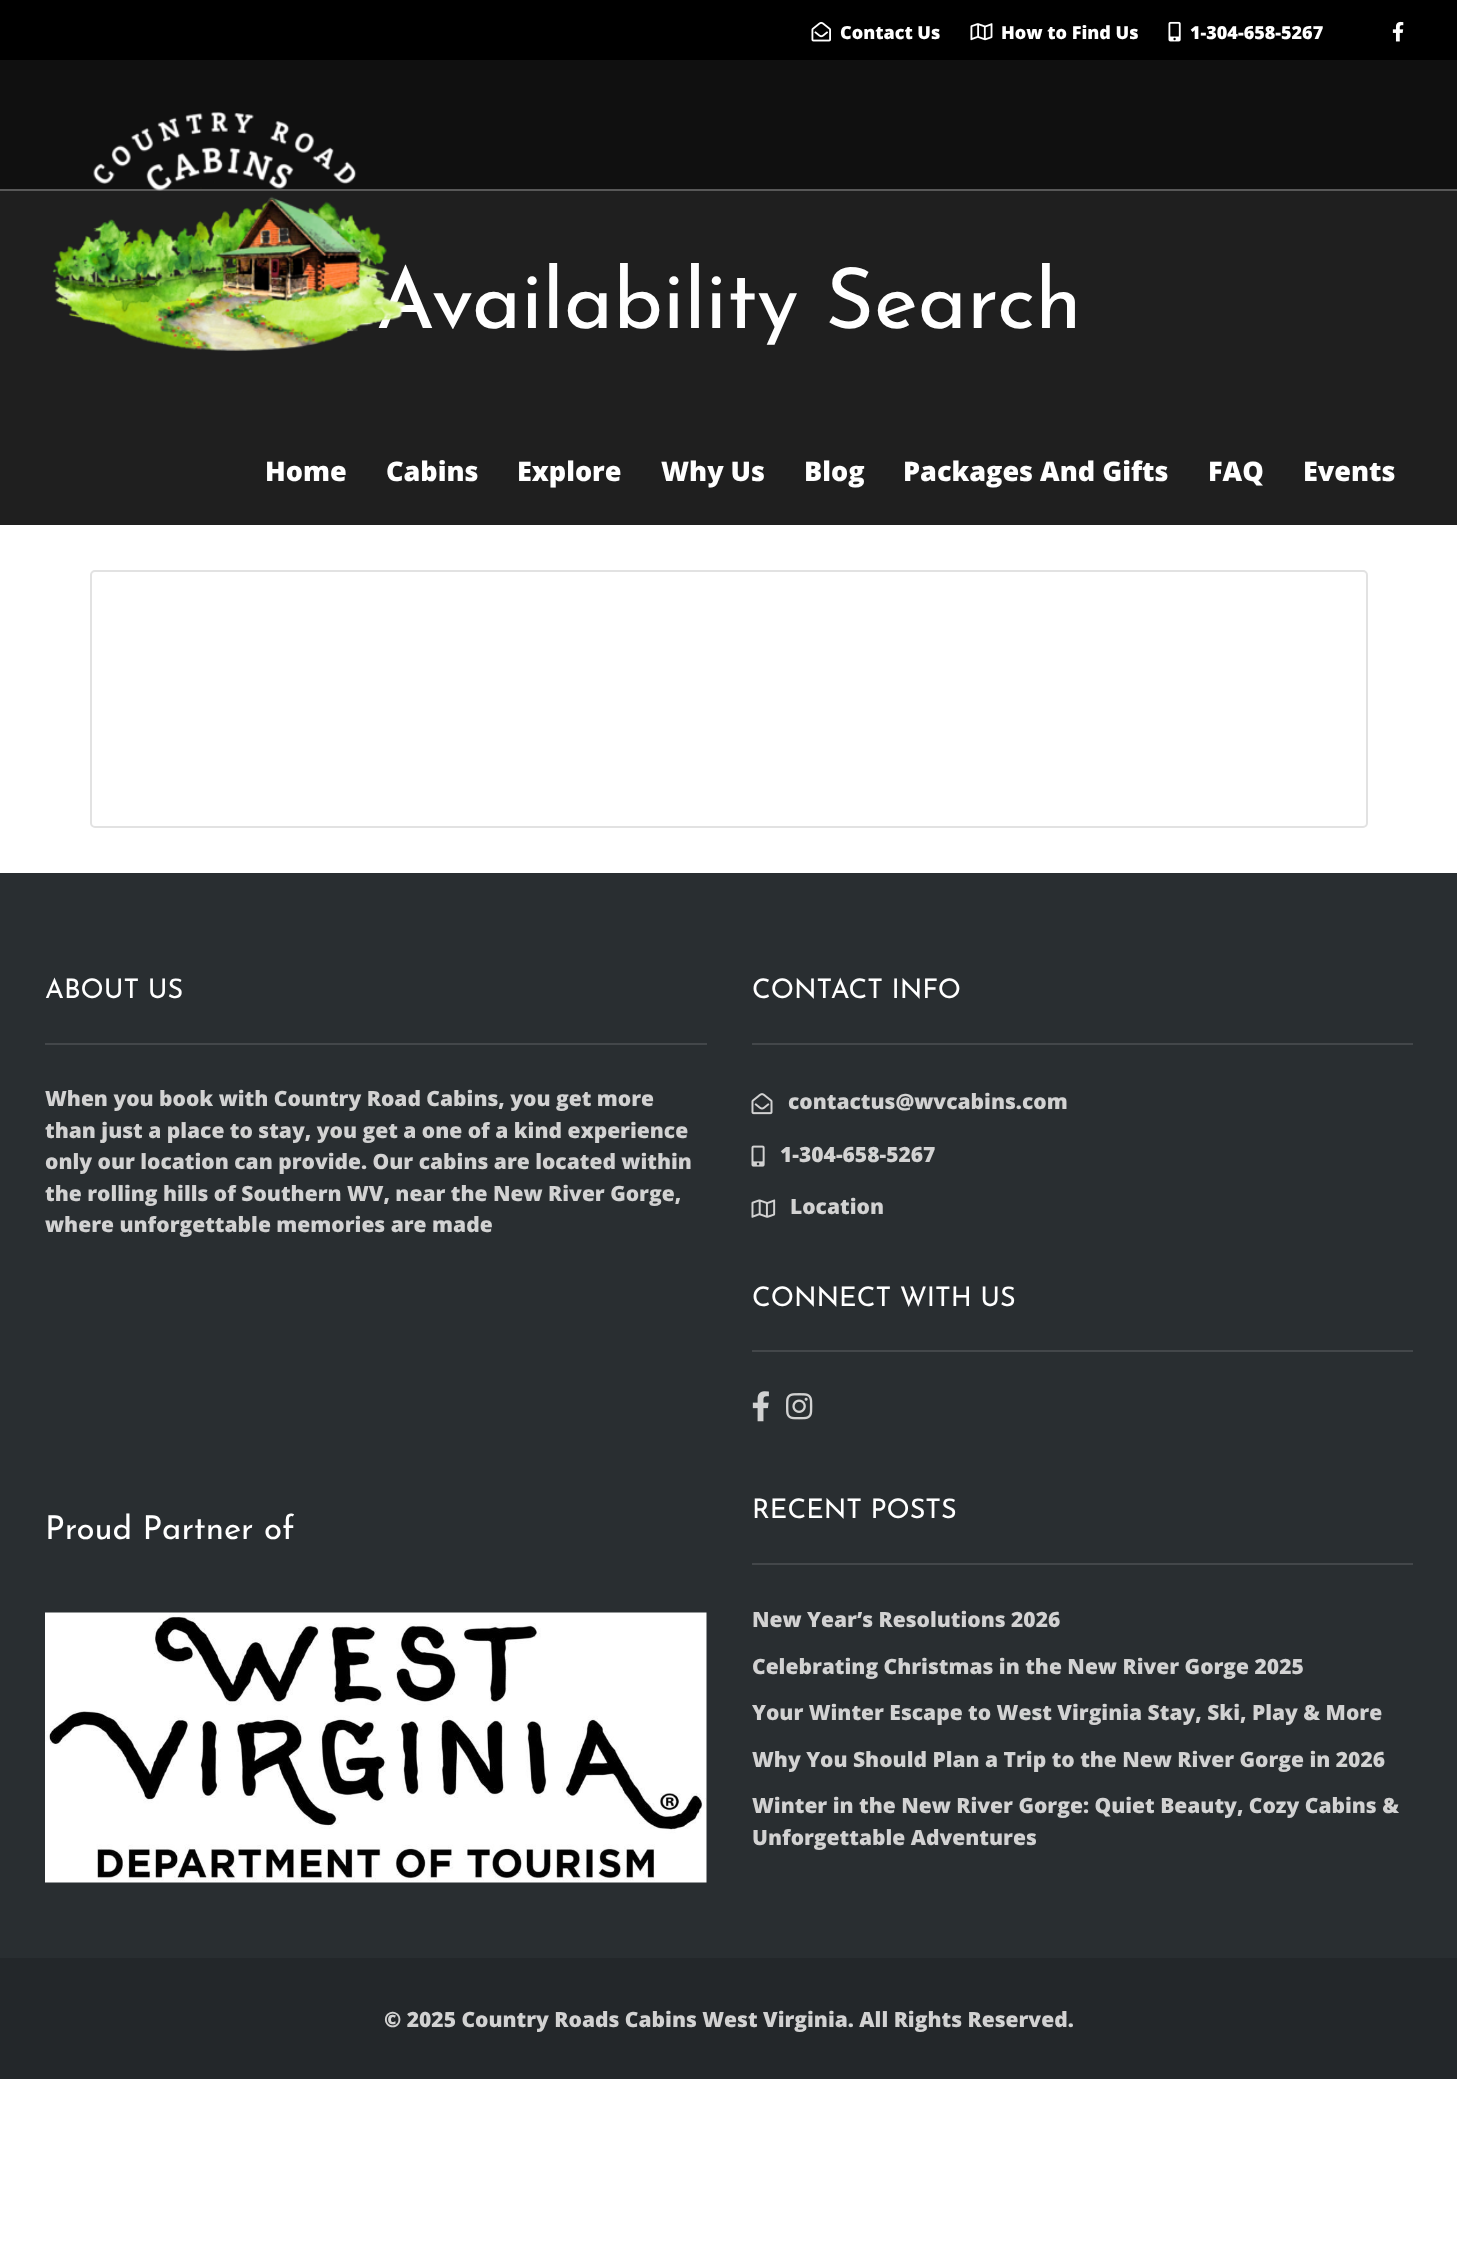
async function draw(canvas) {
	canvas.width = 1457;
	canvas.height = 2266;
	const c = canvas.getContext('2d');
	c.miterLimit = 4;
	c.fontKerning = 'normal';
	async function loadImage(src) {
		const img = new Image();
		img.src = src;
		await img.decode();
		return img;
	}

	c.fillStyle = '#fff';
	c.fillRect(0, 0, 1457, 2266);
	for (const [x, y, w, h, color] of [
		[0, 60, 1457, 129, '#101010'],
		[0, 189, 1457, 2, '#585858'],
		[0, 0, 1457, 60, '#000'],
	]) {
		c.fillStyle = color;
		c.fillRect(x, y, w, h);
	}
	c.drawImage(await loadImage('img1.png'), 811, 21, 20, 21);
	c.font = '800 18px Open Sans';
	c.fillStyle = '#fff';
	c.fillText('Contact Us', 840, 39);
	c.drawImage(await loadImage('img2.png'), 970, 23, 23, 18);
	c.fillText('How to Find Us', 1001, 39);
	c.drawImage(await loadImage('img3.png'), 1168, 21, 13, 21);
	c.fillText('1-304-658-5267', 1190, 39);
	c.drawImage(await loadImage('img4.png'), 1392, 21, 12, 21);
	c.fillStyle = '#1f1f1f';
	c.fillRect(0, 191, 1457, 334);
	c.font = '84px Josefin Sans';
	c.fillStyle = '#fff';
	c.fillText('Availability Search', 376, 328);
	c.drawImage(await loadImage('img5.png'), 52, 111, 355, 240);
	c.font = '800 27px Open Sans';
	for (const [text, x, y] of [
		['Home', 265, 481],
		['Cabins', 386, 481],
		['Explore', 517, 481],
		['Why Us', 661, 481],
		['Blog', 804, 481],
		['Packages And Gifts', 903, 481],
		['FAQ', 1208, 481],
		['Events', 1303, 481],
	]) {
		c.fillText(text, x, y);
	}
	c.beginPath();
	c.roundRect(91, 571, 1276, 256, 4);
	c.strokeStyle = '#e2e2e2';
	c.lineWidth = 2;
	c.stroke();
	c.fillStyle = '#292e31';
	c.fillRect(0, 873, 1457, 1085);
	c.fillStyle = '#43474a';
	c.fillRect(45, 1043, 662, 2);
	c.font = '27px Josefin Sans';
	c.fillStyle = '#fff';
	c.fillText('ABOUT US', 45, 998);
	c.font = '800 21px Open Sans';
	c.fillStyle = '#d2d2d2';
	for (const [text, x, y] of [
		['When you book with Country Road Cabins, you get more', 45, 1106],
		['than just a place to stay, you get a one of a kind experience', 45, 1138],
		['only our location can provide. Our cabins are located within', 45, 1169],
		['the rolling hills of Southern WV, near the New River Gorge,', 45, 1201],
		['where unforgettable memories are made', 45, 1232],
	]) {
		c.fillText(text, x, y);
	}
	c.fillStyle = '#43474a';
	c.fillRect(752, 1043, 661, 2);
	c.font = '27px Josefin Sans';
	c.fillStyle = '#fff';
	c.fillText('CONTACT INFO', 752, 998);
	c.drawImage(await loadImage('img6.png'), 751, 1093, 22, 22);
	c.font = '800 21px Open Sans';
	c.fillStyle = '#d2d2d2';
	c.fillText('contactus@wvcabins.com', 788, 1109);
	c.drawImage(await loadImage('img7.png'), 751, 1145, 14, 22);
	c.fillText('1-304-658-5267', 780, 1162);
	c.drawImage(await loadImage('img8.png'), 751, 1199, 25, 19);
	c.fillText('Location', 790, 1214);
	c.fillStyle = '#43474a';
	c.fillRect(752, 1350, 661, 2);
	c.font = '27px Josefin Sans';
	c.fillStyle = '#fff';
	c.fillText('CONNECT WITH US', 752, 1306);
	c.drawImage(await loadImage('img9.png'), 752, 1391, 17, 31);
	c.drawImage(await loadImage('img10.png'), 786, 1393, 27, 27);
	c.font = '33px Josefin Sans';
	c.fillText('Proud Partner of', 45, 1539);
	c.drawImage(await loadImage('img11.png'), 45, 1612, 662, 271);
	c.fillStyle = '#43474a';
	c.fillRect(752, 1563, 661, 2);
	c.font = '27px Josefin Sans';
	c.fillStyle = '#fff';
	c.fillText('RECENT POSTS', 752, 1518);
	c.font = '800 21px Open Sans';
	c.fillStyle = '#d2d2d2';
	for (const [text, x, y] of [
		['New Year’s Resolutions 2026', 752, 1627],
		['Celebrating Christmas in the New River Gorge 2025', 752, 1674],
		['Your Winter Escape to West Virginia Stay, Ski, Play & More', 752, 1720],
		['Why You Should Plan a Trip to the New River Gorge in 2026', 752, 1767],
		['Winter in the New River Gorge: Quiet Beauty, Cozy Cabins &', 752, 1813],
		['Unforgettable Adventures', 752, 1845],
	]) {
		c.fillText(text, x, y);
	}
	c.fillStyle = '#23272a';
	c.fillRect(0, 1958, 1457, 121);
	c.fillStyle = '#d2d2d2';
	c.fillText('© 2025 Country Roads Cabins West Virginia. All Rights Reserved.', 384, 2027);
}

draw(document.querySelector('canvas'));
